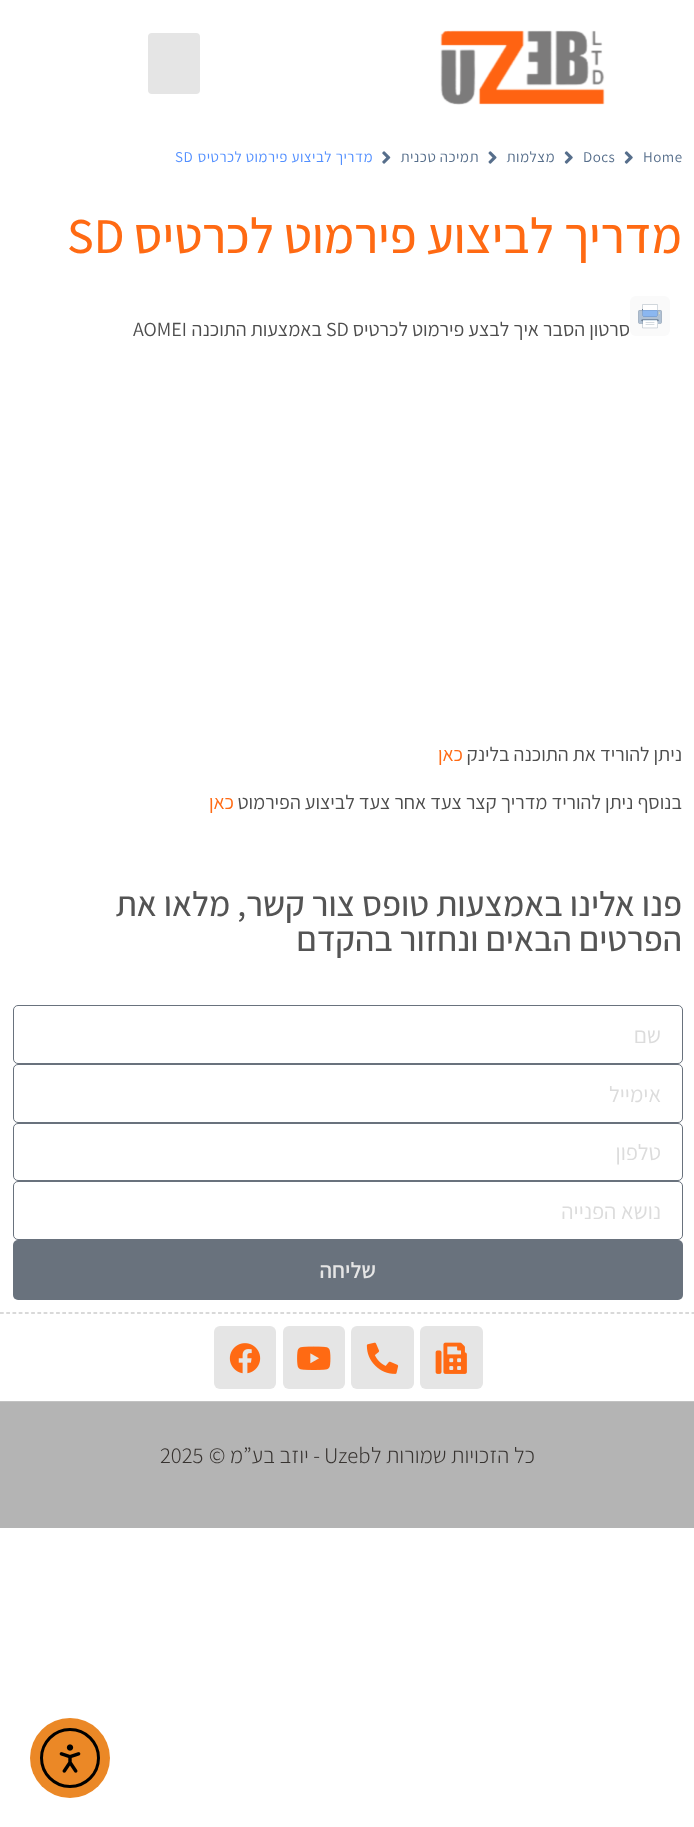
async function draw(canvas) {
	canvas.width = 694;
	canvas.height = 1827;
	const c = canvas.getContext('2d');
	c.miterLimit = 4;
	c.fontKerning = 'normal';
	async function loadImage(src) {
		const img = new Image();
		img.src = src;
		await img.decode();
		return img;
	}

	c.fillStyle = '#fff';
	c.fillRect(0, 0, 694, 1827);
	c.drawImage(await loadImage('img1.png'), 440, 30, 165, 75);
	c.fillStyle = '#e5e5e5';
	c.beginPath();
	c.roundRect(148, 33, 52, 61, 4);
	c.fill();
	c.letterSpacing = '0.5px';
	c.font = '15px Assistant';
	c.fillStyle = '#566e8b';
	c.fillText('Home', 643, 162);
	c.drawImage(await loadImage('img2.png'), 624, 151, 9, 13);
	c.fillText('Docs', 583, 162);
	c.drawImage(await loadImage('img2.png'), 564, 151, 9, 13);
	c.direction = 'rtl';
	c.fillText('מצלמות', 555, 162);
	c.drawImage(await loadImage('img3.png'), 488, 151, 9, 13);
	c.fillText('תמיכה טכנית', 479, 162);
	c.drawImage(await loadImage('img4.png'), 382, 151, 9, 13);
	c.fillStyle = '#528fff';
	c.fillText('מדריך לביצוע פירמוט לכרטיס', 373, 162);
	c.direction = 'ltr';
	c.fillText('SD', 175, 162);
	c.letterSpacing = '0px';
	c.direction = 'rtl';
	c.font = '500 50px Assistant';
	c.fillStyle = '#ff6a13';
	c.fillText('מדריך לביצוע פירמוט לכרטיס', 682, 253);
	c.direction = 'ltr';
	c.fillText('SD', 67, 253);
	c.fillStyle = '#fafafa';
	c.beginPath();
	c.roundRect(630, 296, 40, 40, 6);
	c.fill();
	c.drawImage(await loadImage('img5.png'), 638, 304, 24, 25);
	c.direction = 'rtl';
	c.font = '20px Assistant';
	c.fillStyle = '#4d4d4d';
	c.fillText('סרטון הסבר איך לבצע פירמוט לכרטיס', 630, 336);
	c.direction = 'ltr';
	c.fillText('SD', 326, 336);
	c.direction = 'rtl';
	c.fillText('באמצעות התוכנה', 322, 336);
	c.direction = 'ltr';
	c.fillText('AOMEI', 133, 336);
	c.direction = 'rtl';
	c.fillText('ניתן להוריד את התוכנה בלינק', 682, 761);
	c.fillStyle = '#ff6a13';
	c.fillText('כאן', 463, 761);
	c.fillStyle = '#4d4d4d';
	c.fillText('בנוסף ניתן להוריד מדריך קצר צעד אחר צעד לביצוע הפירמוט', 682, 809);
	c.fillStyle = '#ff6a13';
	c.fillText('כאן', 234, 809);
	c.font = '500 35px Assistant';
	c.fillStyle = '#545454';
	c.fillText('פנו אלינו באמצעות טופס צור קשר, מלאו את', 682, 916);
	c.fillText('הפרטים הבאים ונחזור בהקדם', 682, 951);
	c.beginPath();
	c.roundRect(13.5, 1005.5, 669, 58, 4.5);
	c.strokeStyle = '#69727d';
	c.stroke();
	c.font = '22.5px Assistant';
	c.fillStyle = '#dcdcdc';
	c.fillText('שם', 661, 1043);
	c.beginPath();
	c.roundRect(13.5, 1064.5, 669, 58, 4.5);
	c.stroke();
	c.fillText('אימייל', 661, 1102);
	c.beginPath();
	c.roundRect(13.5, 1123.5, 669, 57, 4.5);
	c.stroke();
	c.fillText('טלפון', 661, 1160);
	c.beginPath();
	c.roundRect(13.5, 1181.5, 669, 58, 4.5);
	c.stroke();
	c.fillText('נושא הפנייה', 661, 1219);
	c.fillStyle = '#69727d';
	c.beginPath();
	c.roundRect(13, 1240, 670, 60, 5);
	c.fill();
	c.font = '600 22.5px Assistant';
	c.fillStyle = '#e5e5e5';
	c.fillText('שליחה', 376, 1278);
	c.beginPath();
	c.moveTo(0, 1313);
	c.lineTo(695, 1313);
	c.strokeStyle = '#b4b4b4';
	c.lineWidth = 1.2;
	c.setLineDash([3.75, 2.48]);
	c.stroke();
	c.beginPath();
	c.roundRect(420, 1326, 63, 63, 6);
	c.fill();
	c.drawImage(await loadImage('img6.png'), 435, 1342, 32, 32);
	c.beginPath();
	c.roundRect(351, 1326, 63, 63, 6);
	c.fill();
	c.drawImage(await loadImage('img7.png'), 366, 1342, 33, 32);
	c.beginPath();
	c.roundRect(283, 1326, 62, 63, 6);
	c.fill();
	c.drawImage(await loadImage('img8.png'), 297, 1346, 34, 24);
	c.beginPath();
	c.roundRect(214, 1326, 62, 63, 6);
	c.fill();
	c.drawImage(await loadImage('img9.png'), 229, 1343, 32, 31);
	c.fillStyle = '#b4b4b4';
	c.fillRect(0, 1402, 694, 126);
	c.fillStyle = '#c2c2c2';
	c.fillRect(0, 1401, 694, 1);
	c.font = '300 22.5px Assistant';
	c.fillStyle = '#373330';
	c.fillText('כל הזכויות שמורות ל', 535, 1463);
	c.direction = 'ltr';
	c.fillText('Uzeb', 324, 1463);
	c.direction = 'rtl';
	c.fillText('- יוזב בע”מ ©', 320, 1463);
	c.direction = 'ltr';
	c.fillText('2025', 160, 1463);
	c.fillStyle = '#eb8826';
	c.beginPath();
	c.arc(70, 1758, 40, 0, 2 * Math.PI);
	c.fill();
	c.beginPath();
	c.arc(70, 1758, 28.5, 0, 2 * Math.PI);
	c.strokeStyle = '#000';
	c.lineWidth = 3;
	c.setLineDash([]);
	c.stroke();
	c.drawImage(await loadImage('img10.png'), 59, 1744, 22, 29);
}

draw(document.querySelector('canvas'));
